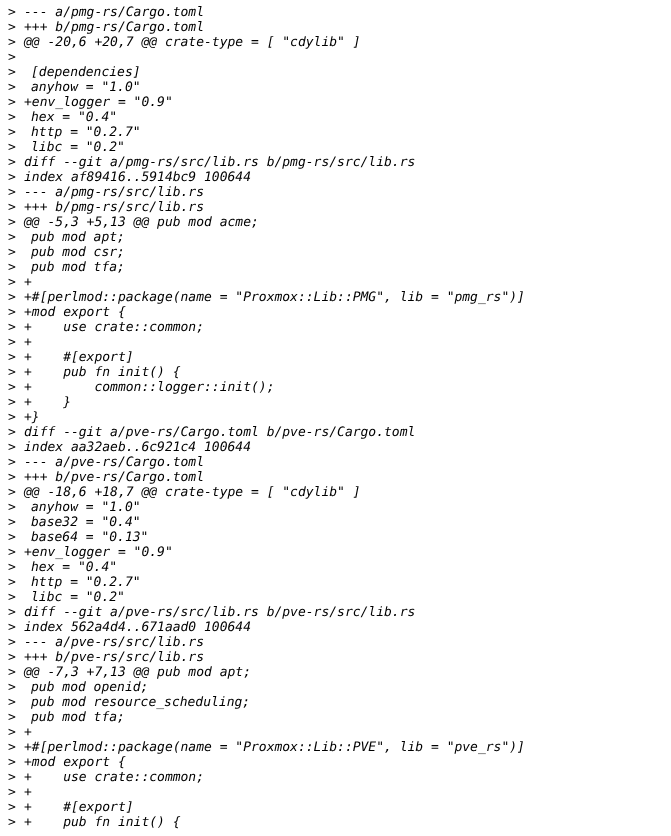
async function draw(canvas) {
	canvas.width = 671;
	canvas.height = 836;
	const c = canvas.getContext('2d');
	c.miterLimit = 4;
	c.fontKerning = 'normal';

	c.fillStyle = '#fff';
	c.fillRect(0, 0, 671, 836);
	c.font = '13px DejaVu Sans Mono';
	c.fillStyle = '#000';
	c.fillText('>', 8, 16);
	c.font = 'italic 13px DejaVu Sans Mono';
	c.fillText('--- a/pmg-rs/Cargo.toml', 24, 16);
	c.font = '13px DejaVu Sans Mono';
	c.fillText('>', 8, 31);
	c.font = 'italic 13px DejaVu Sans Mono';
	c.fillText('+++ b/pmg-rs/Cargo.toml', 24, 31);
	c.font = '13px DejaVu Sans Mono';
	c.fillText('>', 8, 46);
	c.font = 'italic 13px DejaVu Sans Mono';
	c.fillText('@@ -20,6 +20,7 @@ crate-type = [ "cdylib" ]', 24, 46);
	c.font = '13px DejaVu Sans Mono';
	c.fillText('>', 8, 61);
	c.fillText('>', 8, 76);
	c.font = 'italic 13px DejaVu Sans Mono';
	c.fillText('[dependencies]', 31, 76);
	c.font = '13px DejaVu Sans Mono';
	c.fillText('>', 8, 91);
	c.font = 'italic 13px DejaVu Sans Mono';
	c.fillText('anyhow = "1.0"', 31, 91);
	c.font = '13px DejaVu Sans Mono';
	c.fillText('>', 8, 106);
	c.font = 'italic 13px DejaVu Sans Mono';
	c.fillText('+env_logger = "0.9"', 24, 106);
	c.font = '13px DejaVu Sans Mono';
	c.fillText('>', 8, 121);
	c.font = 'italic 13px DejaVu Sans Mono';
	c.fillText('hex = "0.4"', 31, 121);
	c.font = '13px DejaVu Sans Mono';
	c.fillText('>', 8, 136);
	c.font = 'italic 13px DejaVu Sans Mono';
	c.fillText('http = "0.2.7"', 31, 136);
	c.font = '13px DejaVu Sans Mono';
	c.fillText('>', 8, 151);
	c.font = 'italic 13px DejaVu Sans Mono';
	c.fillText('libc = "0.2"', 31, 151);
	c.font = '13px DejaVu Sans Mono';
	c.fillText('>', 8, 166);
	c.font = 'italic 13px DejaVu Sans Mono';
	c.fillText('diff --git a/pmg-rs/src/lib.rs b/pmg-rs/src/lib.rs', 24, 166);
	c.font = '13px DejaVu Sans Mono';
	c.fillText('>', 8, 181);
	c.font = 'italic 13px DejaVu Sans Mono';
	c.fillText('index af89416..5914bc9 100644', 24, 181);
	c.font = '13px DejaVu Sans Mono';
	c.fillText('>', 8, 196);
	c.font = 'italic 13px DejaVu Sans Mono';
	c.fillText('--- a/pmg-rs/src/lib.rs', 24, 196);
	c.font = '13px DejaVu Sans Mono';
	c.fillText('>', 8, 211);
	c.font = 'italic 13px DejaVu Sans Mono';
	c.fillText('+++ b/pmg-rs/src/lib.rs', 24, 211);
	c.font = '13px DejaVu Sans Mono';
	c.fillText('>', 8, 226);
	c.font = 'italic 13px DejaVu Sans Mono';
	c.fillText('@@ -5,3 +5,13 @@ pub mod acme;', 24, 226);
	c.font = '13px DejaVu Sans Mono';
	c.fillText('>', 8, 241);
	c.font = 'italic 13px DejaVu Sans Mono';
	c.fillText('pub mod apt;', 31, 241);
	c.font = '13px DejaVu Sans Mono';
	c.fillText('>', 8, 256);
	c.font = 'italic 13px DejaVu Sans Mono';
	c.fillText('pub mod csr;', 31, 256);
	c.font = '13px DejaVu Sans Mono';
	c.fillText('>', 8, 271);
	c.font = 'italic 13px DejaVu Sans Mono';
	c.fillText('pub mod tfa;', 31, 271);
	c.font = '13px DejaVu Sans Mono';
	c.fillText('>', 8, 286);
	c.font = 'italic 13px DejaVu Sans Mono';
	c.fillText('+', 24, 286);
	c.font = '13px DejaVu Sans Mono';
	c.fillText('>', 8, 301);
	c.font = 'italic 13px DejaVu Sans Mono';
	c.fillText('+#[perlmod::package(name = "Proxmox::Lib::PMG", lib = "pmg_rs")]', 24, 301);
	c.font = '13px DejaVu Sans Mono';
	c.fillText('>', 8, 316);
	c.font = 'italic 13px DejaVu Sans Mono';
	c.fillText('+mod export {', 24, 316);
	c.font = '13px DejaVu Sans Mono';
	c.fillText('>', 8, 331);
	c.font = 'italic 13px DejaVu Sans Mono';
	c.fillText('+    use crate::common;', 24, 331);
	c.font = '13px DejaVu Sans Mono';
	c.fillText('>', 8, 346);
	c.font = 'italic 13px DejaVu Sans Mono';
	c.fillText('+', 24, 346);
	c.font = '13px DejaVu Sans Mono';
	c.fillText('>', 8, 361);
	c.font = 'italic 13px DejaVu Sans Mono';
	c.fillText('+    #[export]', 24, 361);
	c.font = '13px DejaVu Sans Mono';
	c.fillText('>', 8, 376);
	c.font = 'italic 13px DejaVu Sans Mono';
	c.fillText('+    pub fn init() {', 24, 376);
	c.font = '13px DejaVu Sans Mono';
	c.fillText('>', 8, 391);
	c.font = 'italic 13px DejaVu Sans Mono';
	c.fillText('+        common::logger::init();', 24, 391);
	c.font = '13px DejaVu Sans Mono';
	c.fillText('>', 8, 406);
	c.font = 'italic 13px DejaVu Sans Mono';
	c.fillText('+    }', 24, 406);
	c.font = '13px DejaVu Sans Mono';
	c.fillText('>', 8, 421);
	c.font = 'italic 13px DejaVu Sans Mono';
	c.fillText('+}', 24, 421);
	c.font = '13px DejaVu Sans Mono';
	c.fillText('>', 8, 436);
	c.font = 'italic 13px DejaVu Sans Mono';
	c.fillText('diff --git a/pve-rs/Cargo.toml b/pve-rs/Cargo.toml', 24, 436);
	c.font = '13px DejaVu Sans Mono';
	c.fillText('>', 8, 451);
	c.font = 'italic 13px DejaVu Sans Mono';
	c.fillText('index aa32aeb..6c921c4 100644', 24, 451);
	c.font = '13px DejaVu Sans Mono';
	c.fillText('>', 8, 466);
	c.font = 'italic 13px DejaVu Sans Mono';
	c.fillText('--- a/pve-rs/Cargo.toml', 24, 466);
	c.font = '13px DejaVu Sans Mono';
	c.fillText('>', 8, 481);
	c.font = 'italic 13px DejaVu Sans Mono';
	c.fillText('+++ b/pve-rs/Cargo.toml', 24, 481);
	c.font = '13px DejaVu Sans Mono';
	c.fillText('>', 8, 496);
	c.font = 'italic 13px DejaVu Sans Mono';
	c.fillText('@@ -18,6 +18,7 @@ crate-type = [ "cdylib" ]', 24, 496);
	c.font = '13px DejaVu Sans Mono';
	c.fillText('>', 8, 511);
	c.font = 'italic 13px DejaVu Sans Mono';
	c.fillText('anyhow = "1.0"', 31, 511);
	c.font = '13px DejaVu Sans Mono';
	c.fillText('>', 8, 526);
	c.font = 'italic 13px DejaVu Sans Mono';
	c.fillText('base32 = "0.4"', 31, 526);
	c.font = '13px DejaVu Sans Mono';
	c.fillText('>', 8, 541);
	c.font = 'italic 13px DejaVu Sans Mono';
	c.fillText('base64 = "0.13"', 31, 541);
	c.font = '13px DejaVu Sans Mono';
	c.fillText('>', 8, 556);
	c.font = 'italic 13px DejaVu Sans Mono';
	c.fillText('+env_logger = "0.9"', 24, 556);
	c.font = '13px DejaVu Sans Mono';
	c.fillText('>', 8, 571);
	c.font = 'italic 13px DejaVu Sans Mono';
	c.fillText('hex = "0.4"', 31, 571);
	c.font = '13px DejaVu Sans Mono';
	c.fillText('>', 8, 586);
	c.font = 'italic 13px DejaVu Sans Mono';
	c.fillText('http = "0.2.7"', 31, 586);
	c.font = '13px DejaVu Sans Mono';
	c.fillText('>', 8, 601);
	c.font = 'italic 13px DejaVu Sans Mono';
	c.fillText('libc = "0.2"', 31, 601);
	c.font = '13px DejaVu Sans Mono';
	c.fillText('>', 8, 616);
	c.font = 'italic 13px DejaVu Sans Mono';
	c.fillText('diff --git a/pve-rs/src/lib.rs b/pve-rs/src/lib.rs', 24, 616);
	c.font = '13px DejaVu Sans Mono';
	c.fillText('>', 8, 631);
	c.font = 'italic 13px DejaVu Sans Mono';
	c.fillText('index 562a4d4..671aad0 100644', 24, 631);
	c.font = '13px DejaVu Sans Mono';
	c.fillText('>', 8, 646);
	c.font = 'italic 13px DejaVu Sans Mono';
	c.fillText('--- a/pve-rs/src/lib.rs', 24, 646);
	c.font = '13px DejaVu Sans Mono';
	c.fillText('>', 8, 661);
	c.font = 'italic 13px DejaVu Sans Mono';
	c.fillText('+++ b/pve-rs/src/lib.rs', 24, 661);
	c.font = '13px DejaVu Sans Mono';
	c.fillText('>', 8, 676);
	c.font = 'italic 13px DejaVu Sans Mono';
	c.fillText('@@ -7,3 +7,13 @@ pub mod apt;', 24, 676);
	c.font = '13px DejaVu Sans Mono';
	c.fillText('>', 8, 691);
	c.font = 'italic 13px DejaVu Sans Mono';
	c.fillText('pub mod openid;', 31, 691);
	c.font = '13px DejaVu Sans Mono';
	c.fillText('>', 8, 706);
	c.font = 'italic 13px DejaVu Sans Mono';
	c.fillText('pub mod resource_scheduling;', 31, 706);
	c.font = '13px DejaVu Sans Mono';
	c.fillText('>', 8, 721);
	c.font = 'italic 13px DejaVu Sans Mono';
	c.fillText('pub mod tfa;', 31, 721);
	c.font = '13px DejaVu Sans Mono';
	c.fillText('>', 8, 736);
	c.font = 'italic 13px DejaVu Sans Mono';
	c.fillText('+', 24, 736);
	c.font = '13px DejaVu Sans Mono';
	c.fillText('>', 8, 751);
	c.font = 'italic 13px DejaVu Sans Mono';
	c.fillText('+#[perlmod::package(name = "Proxmox::Lib::PVE", lib = "pve_rs")]', 24, 751);
	c.font = '13px DejaVu Sans Mono';
	c.fillText('>', 8, 766);
	c.font = 'italic 13px DejaVu Sans Mono';
	c.fillText('+mod export {', 24, 766);
	c.font = '13px DejaVu Sans Mono';
	c.fillText('>', 8, 781);
	c.font = 'italic 13px DejaVu Sans Mono';
	c.fillText('+    use crate::common;', 24, 781);
	c.font = '13px DejaVu Sans Mono';
	c.fillText('>', 8, 796);
	c.font = 'italic 13px DejaVu Sans Mono';
	c.fillText('+', 24, 796);
	c.font = '13px DejaVu Sans Mono';
	c.fillText('>', 8, 811);
	c.font = 'italic 13px DejaVu Sans Mono';
	c.fillText('+    #[export]', 24, 811);
	c.font = '13px DejaVu Sans Mono';
	c.fillText('>', 8, 826);
	c.font = 'italic 13px DejaVu Sans Mono';
	c.fillText('+    pub fn init() {', 24, 826);
}

draw(document.querySelector('canvas'));
